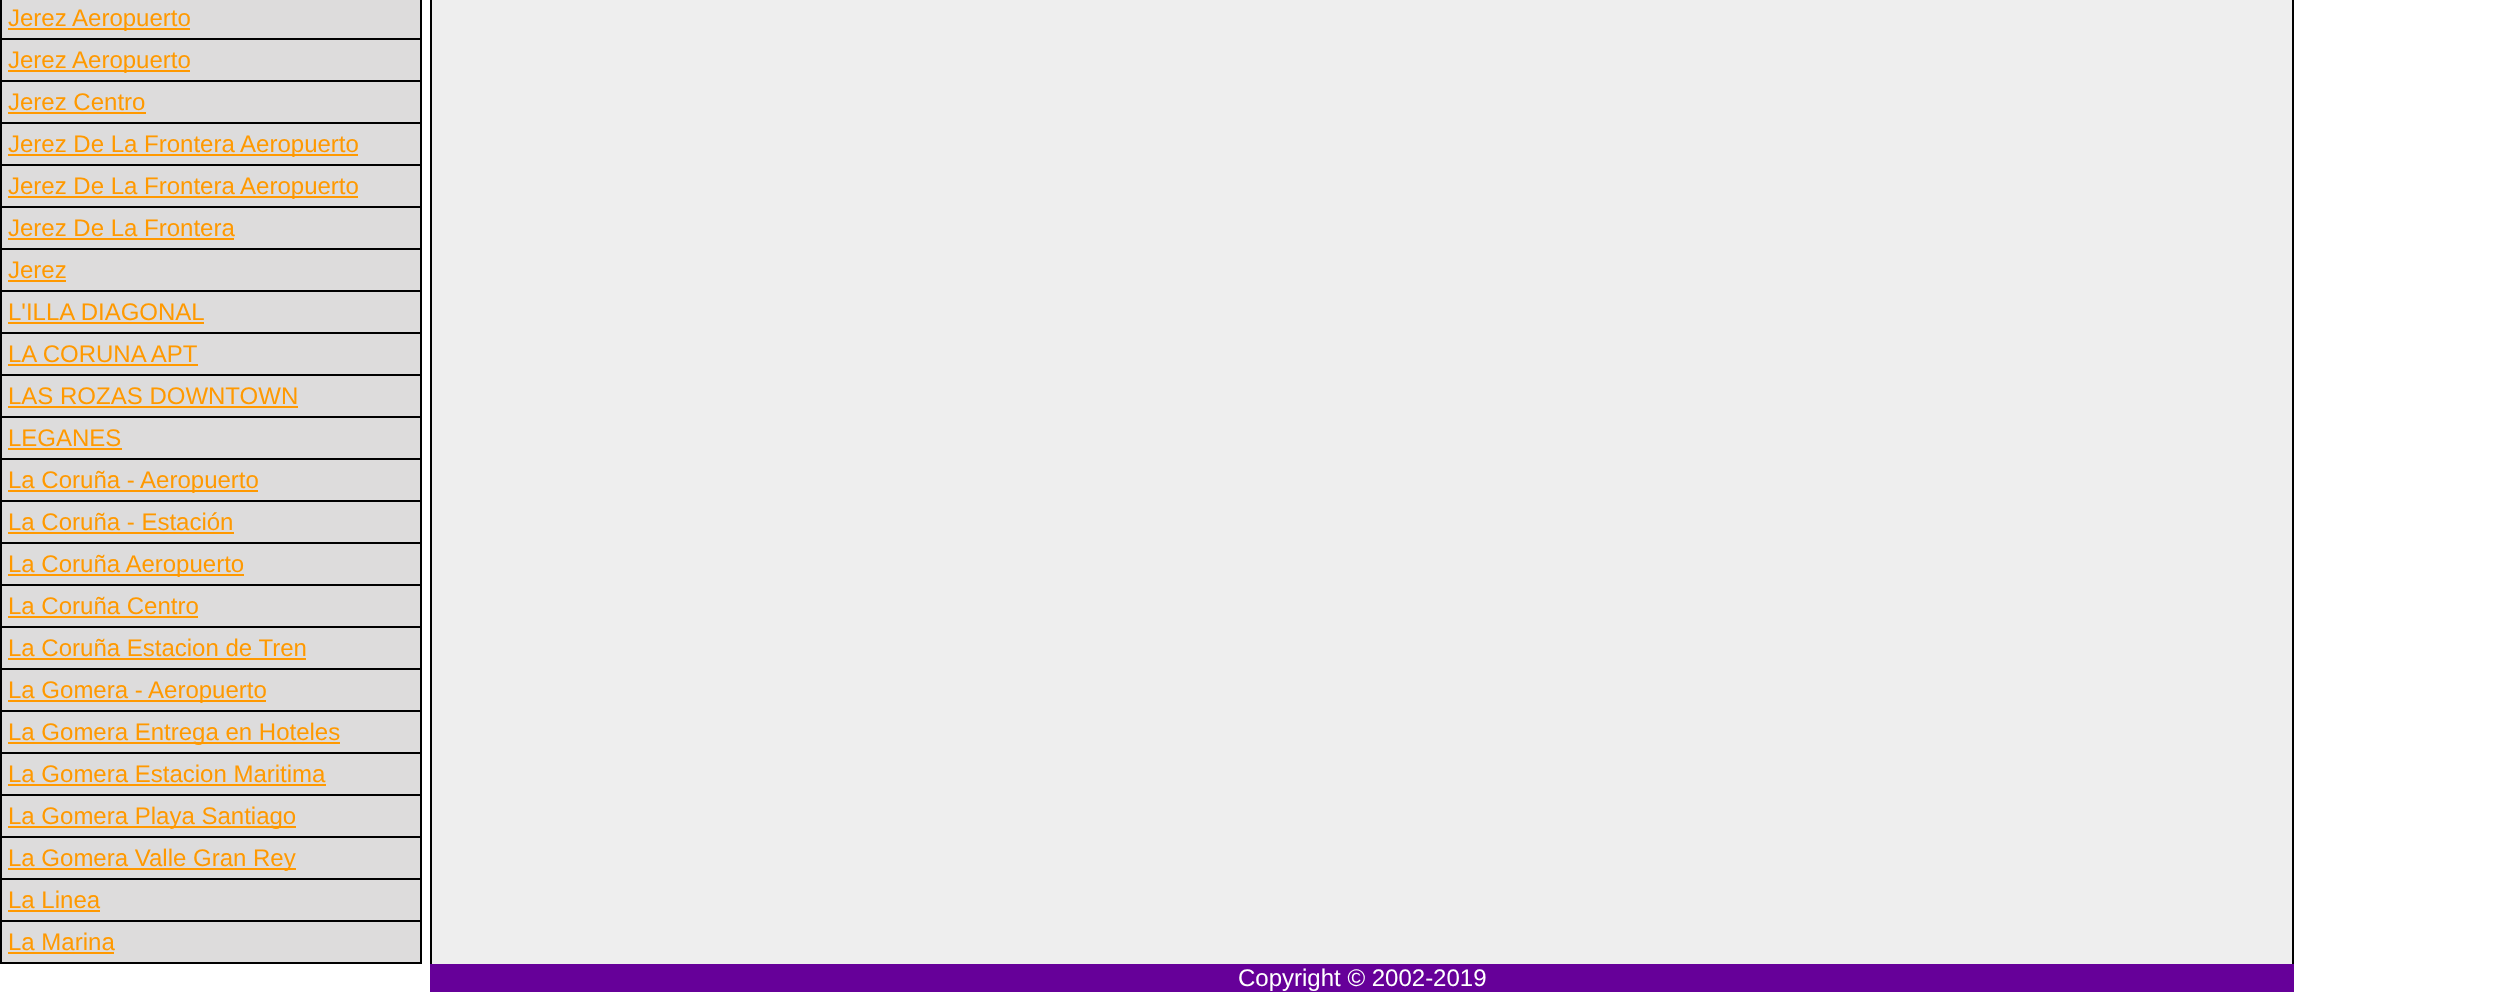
async function draw(canvas) {
	canvas.width = 2513;
	canvas.height = 992;
	const c = canvas.getContext('2d');
	c.miterLimit = 4;
	c.fontKerning = 'normal';

	c.fillStyle = '#fff';
	c.fillRect(0, 0, 2513, 992);
	for (const [x, y, w, h, color] of [
		[0, 0, 422, 964, '#000'],
		[2, 0, 418, 38, '#dddcdc'],
		[8, 28, 182, 2, '#f90'],
	]) {
		c.fillStyle = color;
		c.fillRect(x, y, w, h);
	}
	c.font = '24px Liberation Sans';
	c.fillText('Jerez Aeropuerto', 8, 26);
	c.fillStyle = '#dddcdc';
	c.fillRect(2, 40, 418, 40);
	c.fillStyle = '#f90';
	c.fillRect(8, 70, 182, 2);
	c.fillText('Jerez Aeropuerto', 8, 68);
	c.fillStyle = '#dddcdc';
	c.fillRect(2, 82, 418, 40);
	c.fillStyle = '#f90';
	c.fillText('Jerez Centro', 8, 110);
	for (const [x, y, w, h, color] of [
		[8, 112, 138, 2, '#f90'],
		[2, 124, 418, 40, '#dddcdc'],
		[8, 154, 350, 2, '#f90'],
	]) {
		c.fillStyle = color;
		c.fillRect(x, y, w, h);
	}
	c.fillText('Jerez De La Frontera Aeropuerto', 8, 152);
	c.fillStyle = '#dddcdc';
	c.fillRect(2, 166, 418, 40);
	c.fillStyle = '#f90';
	c.fillRect(8, 196, 350, 2);
	c.fillText('Jerez De La Frontera Aeropuerto', 8, 194);
	c.fillStyle = '#dddcdc';
	c.fillRect(2, 208, 418, 40);
	c.fillStyle = '#f90';
	c.fillText('Jerez De La Frontera', 8, 236);
	c.fillRect(8, 238, 226, 2);
	c.fillStyle = '#dddcdc';
	c.fillRect(2, 250, 418, 40);
	c.fillStyle = '#f90';
	c.fillText('Jerez', 8, 278);
	c.fillRect(8, 280, 58, 2);
	c.fillStyle = '#dddcdc';
	c.fillRect(2, 292, 418, 40);
	c.fillStyle = '#f90';
	c.fillText('L\'ILLA DIAGONAL', 8, 320);
	c.fillRect(8, 322, 196, 2);
	c.fillStyle = '#dddcdc';
	c.fillRect(2, 334, 418, 40);
	c.fillStyle = '#f90';
	c.fillText('LA CORUNA APT', 8, 362);
	c.fillRect(8, 364, 190, 2);
	c.fillStyle = '#dddcdc';
	c.fillRect(2, 376, 418, 40);
	c.fillStyle = '#f90';
	c.fillText('LAS ROZAS DOWNTOWN', 8, 404);
	c.fillRect(8, 406, 290, 2);
	c.fillStyle = '#dddcdc';
	c.fillRect(2, 418, 418, 40);
	c.fillStyle = '#f90';
	c.fillText('LEGANES', 8, 446);
	for (const [x, y, w, h, color] of [
		[8, 448, 114, 2, '#f90'],
		[2, 460, 418, 40, '#dddcdc'],
		[8, 490, 250, 2, '#f90'],
	]) {
		c.fillStyle = color;
		c.fillRect(x, y, w, h);
	}
	c.fillText('La Coruña - Aeropuerto', 8, 488);
	c.fillStyle = '#dddcdc';
	c.fillRect(2, 502, 418, 40);
	c.fillStyle = '#f90';
	c.fillText('La Coruña - Estación', 8, 530);
	for (const [x, y, w, h, color] of [
		[8, 532, 226, 2, '#f90'],
		[2, 544, 418, 40, '#dddcdc'],
		[8, 574, 236, 2, '#f90'],
	]) {
		c.fillStyle = color;
		c.fillRect(x, y, w, h);
	}
	c.fillText('La Coruña Aeropuerto', 8, 572);
	c.fillStyle = '#dddcdc';
	c.fillRect(2, 586, 418, 40);
	c.fillStyle = '#f90';
	c.fillText('La Coruña Centro', 8, 614);
	c.fillRect(8, 616, 190, 2);
	c.fillStyle = '#dddcdc';
	c.fillRect(2, 628, 418, 40);
	c.fillStyle = '#f90';
	c.fillText('La Coruña Estacion de Tren', 8, 656);
	for (const [x, y, w, h, color] of [
		[8, 658, 298, 2, '#f90'],
		[2, 670, 418, 40, '#dddcdc'],
		[8, 700, 258, 2, '#f90'],
	]) {
		c.fillStyle = color;
		c.fillRect(x, y, w, h);
	}
	c.fillText('La Gomera - Aeropuerto', 8, 698);
	c.fillStyle = '#dddcdc';
	c.fillRect(2, 712, 418, 40);
	c.fillStyle = '#f90';
	c.fillRect(8, 742, 332, 2);
	c.fillText('La Gomera Entrega en Hoteles', 8, 740);
	c.fillStyle = '#dddcdc';
	c.fillRect(2, 754, 418, 40);
	c.fillStyle = '#f90';
	c.fillText('La Gomera Estacion Maritima', 8, 782);
	for (const [x, y, w, h, color] of [
		[8, 784, 318, 2, '#f90'],
		[2, 796, 418, 40, '#dddcdc'],
		[8, 826, 288, 2, '#f90'],
	]) {
		c.fillStyle = color;
		c.fillRect(x, y, w, h);
	}
	c.fillText('La Gomera Playa Santiago', 8, 824);
	c.fillStyle = '#dddcdc';
	c.fillRect(2, 838, 418, 40);
	c.fillStyle = '#f90';
	c.fillRect(8, 868, 288, 2);
	c.fillText('La Gomera Valle Gran Rey', 8, 866);
	c.fillStyle = '#dddcdc';
	c.fillRect(2, 880, 418, 40);
	c.fillStyle = '#f90';
	c.fillText('La Linea', 8, 908);
	c.fillRect(8, 910, 92, 2);
	c.fillStyle = '#dddcdc';
	c.fillRect(2, 922, 418, 40);
	c.fillStyle = '#f90';
	c.fillText('La Marina', 8, 950);
	for (const [x, y, w, h, color] of [
		[8, 952, 106, 2, '#f90'],
		[432, 0, 1860, 964, '#eee'],
		[2292, 0, 2, 964, '#000'],
		[430, 0, 2, 964, '#000'],
		[430, 964, 1864, 28, '#609'],
	]) {
		c.fillStyle = color;
		c.fillRect(x, y, w, h);
	}
	c.fillStyle = '#fff';
	c.fillText('Copyright © 2002-2019', 1238, 986);
}

draw(document.querySelector('canvas'));
